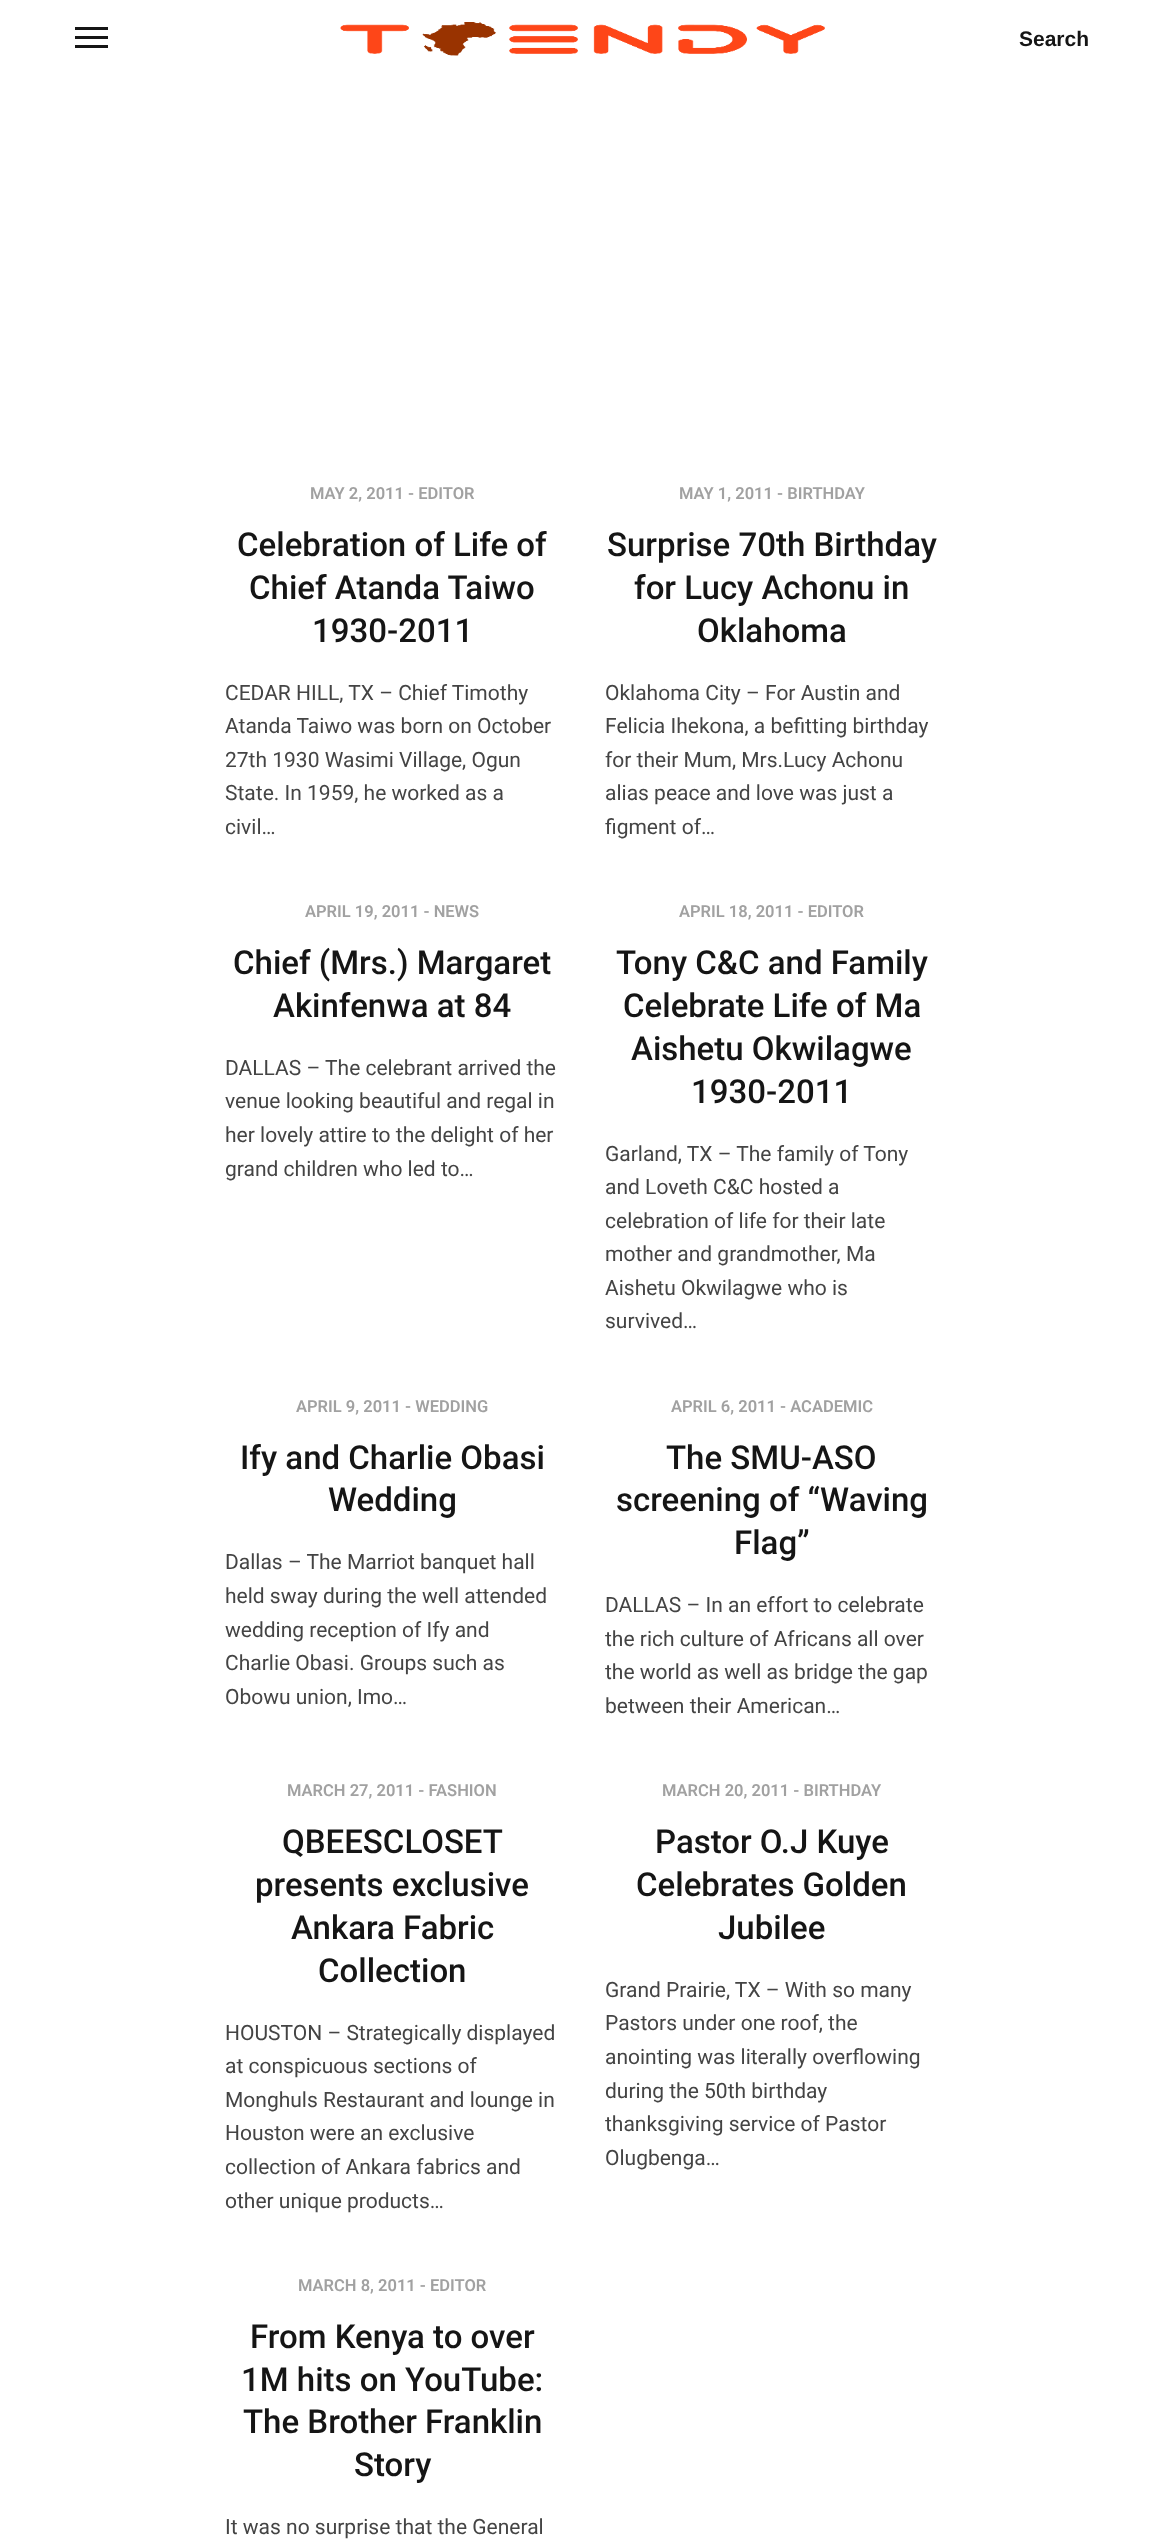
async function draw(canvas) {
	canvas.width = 1164;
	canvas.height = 2543;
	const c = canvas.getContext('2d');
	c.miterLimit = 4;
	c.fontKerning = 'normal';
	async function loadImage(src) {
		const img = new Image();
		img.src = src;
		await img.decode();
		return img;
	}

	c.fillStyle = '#fff';
	c.fillRect(0, 0, 1164, 2543);
	for (const [x, y, w, h, color] of [
		[75, 27, 33, 3, '#151515'],
		[75, 36, 33, 3, '#151515'],
		[75, 45, 33, 3, '#151515'],
	]) {
		c.fillStyle = color;
		c.fillRect(x, y, w, h);
	}
	c.drawImage(await loadImage('img1.png'), 340, 22, 485, 34);
	c.font = 'bold 21px Liberation Sans';
	c.fillText('Search', 1019, 46);
	c.font = '600 16.5px Roboto';
	c.fillStyle = '#a1a1a1';
	c.fillText('MAY 2, 2011 - EDITOR', 310, 499);
	c.font = '500 33px Roboto';
	c.fillStyle = '#151515';
	for (const [text, x, y] of [
		['Celebration of Life of', 237, 556],
		['Chief Atanda Taiwo', 249, 599],
		['1930-2011', 312, 642],
	]) {
		c.fillText(text, x, y);
	}
	c.font = '21px Roboto';
	c.fillStyle = '#444';
	for (const [text, x, y] of [
		['CEDAR HILL, TX – Chief Timothy', 225, 700],
		['Atanda Taiwo was born on October', 225, 733],
		['27th 1930 Wasimi Village, Ogun', 225, 767],
		['State. In 1959, he worked as a', 225, 800],
		['civil…', 225, 834],
	]) {
		c.fillText(text, x, y);
	}
	c.font = '600 16.5px Roboto';
	c.fillStyle = '#a1a1a1';
	c.fillText('MAY 1, 2011 - BIRTHDAY', 679, 499);
	c.font = '500 33px Roboto';
	c.fillStyle = '#151515';
	for (const [text, x, y] of [
		['Surprise 70th Birthday', 607, 556],
		['for Lucy Achonu in', 634, 599],
		['Oklahoma', 697, 642],
	]) {
		c.fillText(text, x, y);
	}
	c.font = '21px Roboto';
	c.fillStyle = '#444';
	for (const [text, x, y] of [
		['Oklahoma City – For Austin and', 605, 700],
		['Felicia Ihekona, a befitting birthday', 605, 733],
		['for their Mum, Mrs.Lucy Achonu', 605, 767],
		['alias peace and love was just a', 605, 800],
		['figment of…', 605, 834],
	]) {
		c.fillText(text, x, y);
	}
	c.font = '600 16.5px Roboto';
	c.fillStyle = '#a1a1a1';
	c.fillText('APRIL 19, 2011 - NEWS', 305, 917);
	c.font = '500 33px Roboto';
	c.fillStyle = '#151515';
	c.fillText('Chief (Mrs.) Margaret', 233, 974);
	c.fillText('Akinfenwa at 84', 273, 1017);
	c.font = '21px Roboto';
	c.fillStyle = '#444';
	for (const [text, x, y] of [
		['DALLAS – The celebrant arrived the', 225, 1075],
		['venue looking beautiful and regal in', 225, 1108],
		['her lovely attire to the delight of her', 225, 1142],
		['grand children who led to…', 225, 1176],
	]) {
		c.fillText(text, x, y);
	}
	c.font = '600 16.5px Roboto';
	c.fillStyle = '#a1a1a1';
	c.fillText('APRIL 18, 2011 - EDITOR', 679, 917);
	c.font = '500 33px Roboto';
	c.fillStyle = '#151515';
	for (const [text, x, y] of [
		['Tony C&C and Family', 616, 974],
		['Celebrate Life of Ma', 623, 1017],
		['Aishetu Okwilagwe', 631, 1060],
		['1930-2011', 691, 1103],
	]) {
		c.fillText(text, x, y);
	}
	c.font = '21px Roboto';
	c.fillStyle = '#444';
	for (const [text, x, y] of [
		['Garland, TX – The family of Tony', 605, 1161],
		['and Loveth C&C hosted a', 605, 1194],
		['celebration of life for their late', 605, 1228],
		['mother and grandmother, Ma', 605, 1261],
		['Aishetu Okwilagwe who is', 605, 1295],
		['survived…', 605, 1328],
	]) {
		c.fillText(text, x, y);
	}
	c.font = '600 16.5px Roboto';
	c.fillStyle = '#a1a1a1';
	c.fillText('APRIL 9, 2011 - WEDDING', 296, 1412);
	c.font = '500 33px Roboto';
	c.fillStyle = '#151515';
	c.fillText('Ify and Charlie Obasi', 240, 1469);
	c.fillText('Wedding', 328, 1511);
	c.font = '21px Roboto';
	c.fillStyle = '#444';
	for (const [text, x, y] of [
		['Dallas – The Marriot banquet hall', 225, 1569],
		['held sway during the well attended', 225, 1603],
		['wedding reception of Ify and', 225, 1637],
		['Charlie Obasi. Groups such as', 225, 1670],
		['Obowu union, Imo…', 225, 1704],
	]) {
		c.fillText(text, x, y);
	}
	c.font = '600 16.5px Roboto';
	c.fillStyle = '#a1a1a1';
	c.fillText('APRIL 6, 2011 - ACADEMIC', 671, 1412);
	c.font = '500 33px Roboto';
	c.fillStyle = '#151515';
	for (const [text, x, y] of [
		['The SMU-ASO', 666, 1469],
		['screening of “Waving', 616, 1511],
		['Flag”', 734, 1554],
	]) {
		c.fillText(text, x, y);
	}
	c.font = '21px Roboto';
	c.fillStyle = '#444';
	for (const [text, x, y] of [
		['DALLAS – In an effort to celebrate', 605, 1612],
		['the rich culture of Africans all over', 605, 1646],
		['the world as well as bridge the gap', 605, 1679],
		['between their American…', 605, 1713],
	]) {
		c.fillText(text, x, y);
	}
	c.font = '600 16.5px Roboto';
	c.fillStyle = '#a1a1a1';
	c.fillText('MARCH 27, 2011 - FASHION', 287, 1796);
	c.font = '500 33px Roboto';
	c.fillStyle = '#151515';
	for (const [text, x, y] of [
		['QBEESCLOSET', 282, 1853],
		['presents exclusive', 255, 1896],
		['Ankara Fabric', 291, 1939],
		['Collection', 318, 1982],
	]) {
		c.fillText(text, x, y);
	}
	c.font = '21px Roboto';
	c.fillStyle = '#444';
	for (const [text, x, y] of [
		['HOUSTON – Strategically displayed', 225, 2040],
		['at conspicuous sections of', 225, 2073],
		['Monghuls Restaurant and lounge in', 225, 2107],
		['Houston were an exclusive', 225, 2140],
		['collection of Ankara fabrics and', 225, 2174],
		['other unique products…', 225, 2208],
	]) {
		c.fillText(text, x, y);
	}
	c.font = '600 16.5px Roboto';
	c.fillStyle = '#a1a1a1';
	c.fillText('MARCH 20, 2011 - BIRTHDAY', 662, 1796);
	c.font = '500 33px Roboto';
	c.fillStyle = '#151515';
	for (const [text, x, y] of [
		['Pastor O.J Kuye', 655, 1853],
		['Celebrates Golden', 636, 1896],
		['Jubilee', 718, 1939],
	]) {
		c.fillText(text, x, y);
	}
	c.font = '21px Roboto';
	c.fillStyle = '#444';
	for (const [text, x, y] of [
		['Grand Prairie, TX – With so many', 605, 1997],
		['Pastors under one roof, the', 605, 2030],
		['anointing was literally overflowing', 605, 2064],
		['during the 50th birthday', 605, 2098],
		['thanksgiving service of Pastor', 605, 2131],
		['Olugbenga…', 605, 2165],
	]) {
		c.fillText(text, x, y);
	}
	c.font = '600 16.5px Roboto';
	c.fillStyle = '#a1a1a1';
	c.fillText('MARCH 8, 2011 - EDITOR', 298, 2291);
	c.font = '500 33px Roboto';
	c.fillStyle = '#151515';
	for (const [text, x, y] of [
		['From Kenya to over', 250, 2348],
		['1M hits on YouTube:', 241, 2391],
		['The Brother Franklin', 243, 2433],
		['Story', 354, 2476],
	]) {
		c.fillText(text, x, y);
	}
	c.font = '21px Roboto';
	c.fillStyle = '#444';
	c.fillText('It was no surprise that the General', 225, 2534);
}

draw(document.querySelector('canvas'));
